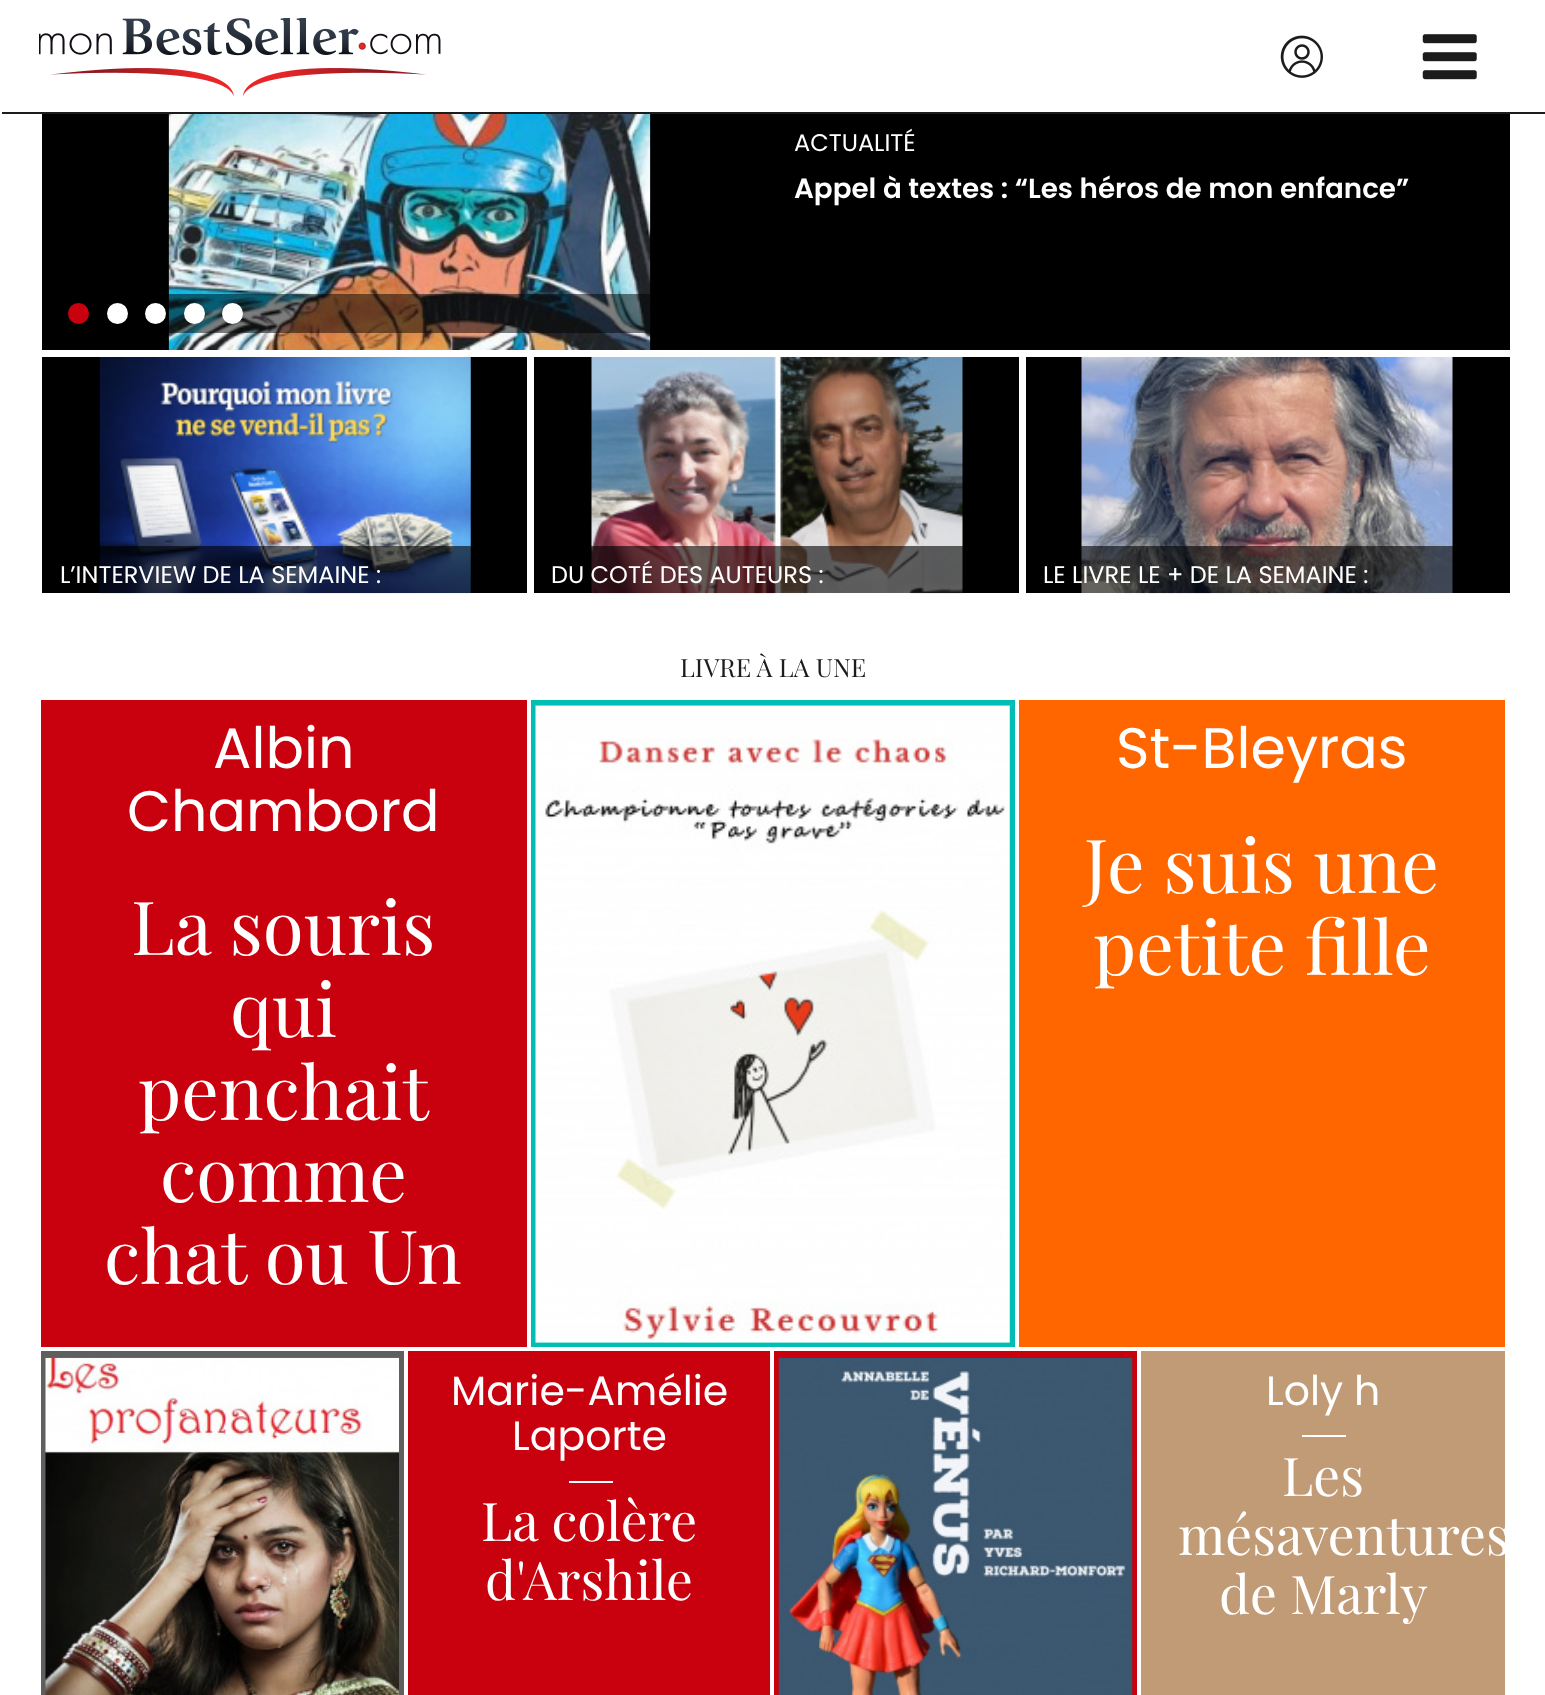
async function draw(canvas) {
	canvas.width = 1545;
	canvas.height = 1695;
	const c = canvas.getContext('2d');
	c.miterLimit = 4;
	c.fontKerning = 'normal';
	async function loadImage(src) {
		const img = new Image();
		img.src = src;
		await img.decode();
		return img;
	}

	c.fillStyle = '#fff';
	c.fillRect(0, 0, 1545, 1695);
	c.drawImage(await loadImage('img1.png'), 39, 18, 402, 78);
	c.drawImage(await loadImage('img2.png'), 1280, 35, 43, 43);
	c.drawImage(await loadImage('img3.png'), 1422, 34, 55, 46);
	c.fillStyle = '#1c1c1c';
	c.fillRect(2, 112, 1543, 2);
	c.fillStyle = '#000';
	c.fillRect(42, 114, 1468, 236);
	c.drawImage(await loadImage('img4.png'), 168, 114, 483, 236);
	c.font = '24px Poppins';
	c.fillStyle = '#fff';
	c.fillText('ACTUALITÉ', 794, 151);
	c.font = '600 27.75px Poppins';
	c.fillText('Appel à textes : “Les héros de mon enfance”', 794, 198);
	c.fillStyle = '#00000080';
	c.fillRect(168, 294, 482, 39);
	c.fillStyle = '#c9000d';
	c.beginPath();
	c.arc(78.5, 313.5, 10.5, 0, 2 * Math.PI);
	c.fill();
	c.fillStyle = '#fff';
	c.beginPath();
	c.arc(117.5, 313.5, 10.5, 0, 2 * Math.PI);
	c.fill();
	c.beginPath();
	c.arc(155.5, 313.5, 10.5, 0, 2 * Math.PI);
	c.fill();
	c.beginPath();
	c.arc(194.5, 313.5, 10.5, 0, 2 * Math.PI);
	c.fill();
	c.beginPath();
	c.arc(232.5, 313.5, 10.5, 0, 2 * Math.PI);
	c.fill();
	c.fillStyle = '#000';
	c.fillRect(42, 357, 485, 236);
	c.drawImage(await loadImage('img5.png'), 99, 357, 372, 237);
	c.fillStyle = '#00000099';
	c.fillRect(99, 546, 372, 47);
	c.font = '24px Poppins';
	c.fillStyle = '#fff';
	c.fillText('L’INTERVIEW DE LA SEMAINE :', 60, 583);
	c.fillStyle = '#000';
	c.fillRect(534, 357, 485, 236);
	c.drawImage(await loadImage('img6.png'), 591, 357, 372, 237);
	c.fillStyle = '#00000099';
	c.fillRect(591, 546, 372, 47);
	c.fillStyle = '#fff';
	c.fillText('DU COTÉ DES AUTEURS :', 551, 583);
	c.fillStyle = '#000';
	c.fillRect(1026, 357, 484, 236);
	c.drawImage(await loadImage('img7.png'), 1081, 357, 372, 237);
	c.fillStyle = '#00000099';
	c.fillRect(1081, 546, 372, 47);
	c.fillStyle = '#fff';
	c.fillText('LE LIVRE LE + DE LA SEMAINE :', 1043, 583);
	c.font = '25.25px Playfair Display';
	c.fillStyle = '#1c1c1c';
	c.fillText('LIVRE À LA UNE', 680, 677);
	c.fillStyle = '#c9000d';
	c.fillRect(41, 700, 486, 647);
	c.font = '57px Poppins';
	c.fillStyle = '#fff';
	c.fillText('Albin', 213, 768);
	c.fillText('Chambord', 127, 831);
	c.font = '74.5px Playfair Display';
	for (const [text, x, y] of [
		['La souris', 131, 955],
		['qui', 230, 1037],
		['penchait', 138, 1120],
		['comme', 160, 1202],
		['chat ou Un', 104, 1284],
	]) {
		c.fillText(text, x, y);
	}
	c.fillStyle = '#00beb3';
	c.fillRect(531, 700, 484, 647);
	c.drawImage(await loadImage('img8.png'), 535, 705, 475, 638);
	c.fillStyle = '#f60';
	c.fillRect(1019, 700, 486, 647);
	c.font = '57px Poppins';
	c.fillStyle = '#fff';
	c.fillText('St-Bleyras', 1116, 768);
	c.font = '74.5px Playfair Display';
	c.fillText('Je suis une', 1084, 893);
	c.fillText('petite fille', 1093, 975);
	c.fillStyle = '#5f5f5f';
	c.fillRect(41, 1351, 363, 344);
	c.drawImage(await loadImage('img9.png'), 45, 1357, 354, 338);
	c.fillStyle = '#c9000d';
	c.fillRect(408, 1351, 362, 344);
	c.font = '41px Poppins';
	c.fillStyle = '#fff';
	c.fillText('Marie-Amélie', 451, 1405);
	c.fillText('Laporte', 512, 1450);
	c.fillRect(569, 1481, 44, 2);
	c.font = '53.25px Playfair Display';
	c.fillText('La colère', 481, 1541);
	c.fillText('d\'Arshile', 485, 1600);
	c.fillStyle = '#c9000d';
	c.fillRect(774, 1351, 363, 344);
	c.drawImage(await loadImage('img10.png'), 778, 1357, 355, 338);
	c.fillStyle = '#c19a76';
	c.fillRect(1141, 1351, 364, 344);
	c.font = '41px Poppins';
	c.fillStyle = '#fff';
	c.fillText('Loly h', 1266, 1405);
	c.fillRect(1302, 1435, 44, 2);
	c.font = '53.25px Playfair Display';
	c.fillText('Les', 1282, 1496);
	c.save();
	c.beginPath();
	c.rect(1141, 1351, 364, 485);
	c.clip();
	c.fillText('mésaventures', 1178, 1555);
	c.restore();
	c.fillText('de Marly', 1219, 1614);
}

draw(document.querySelector('canvas'));
